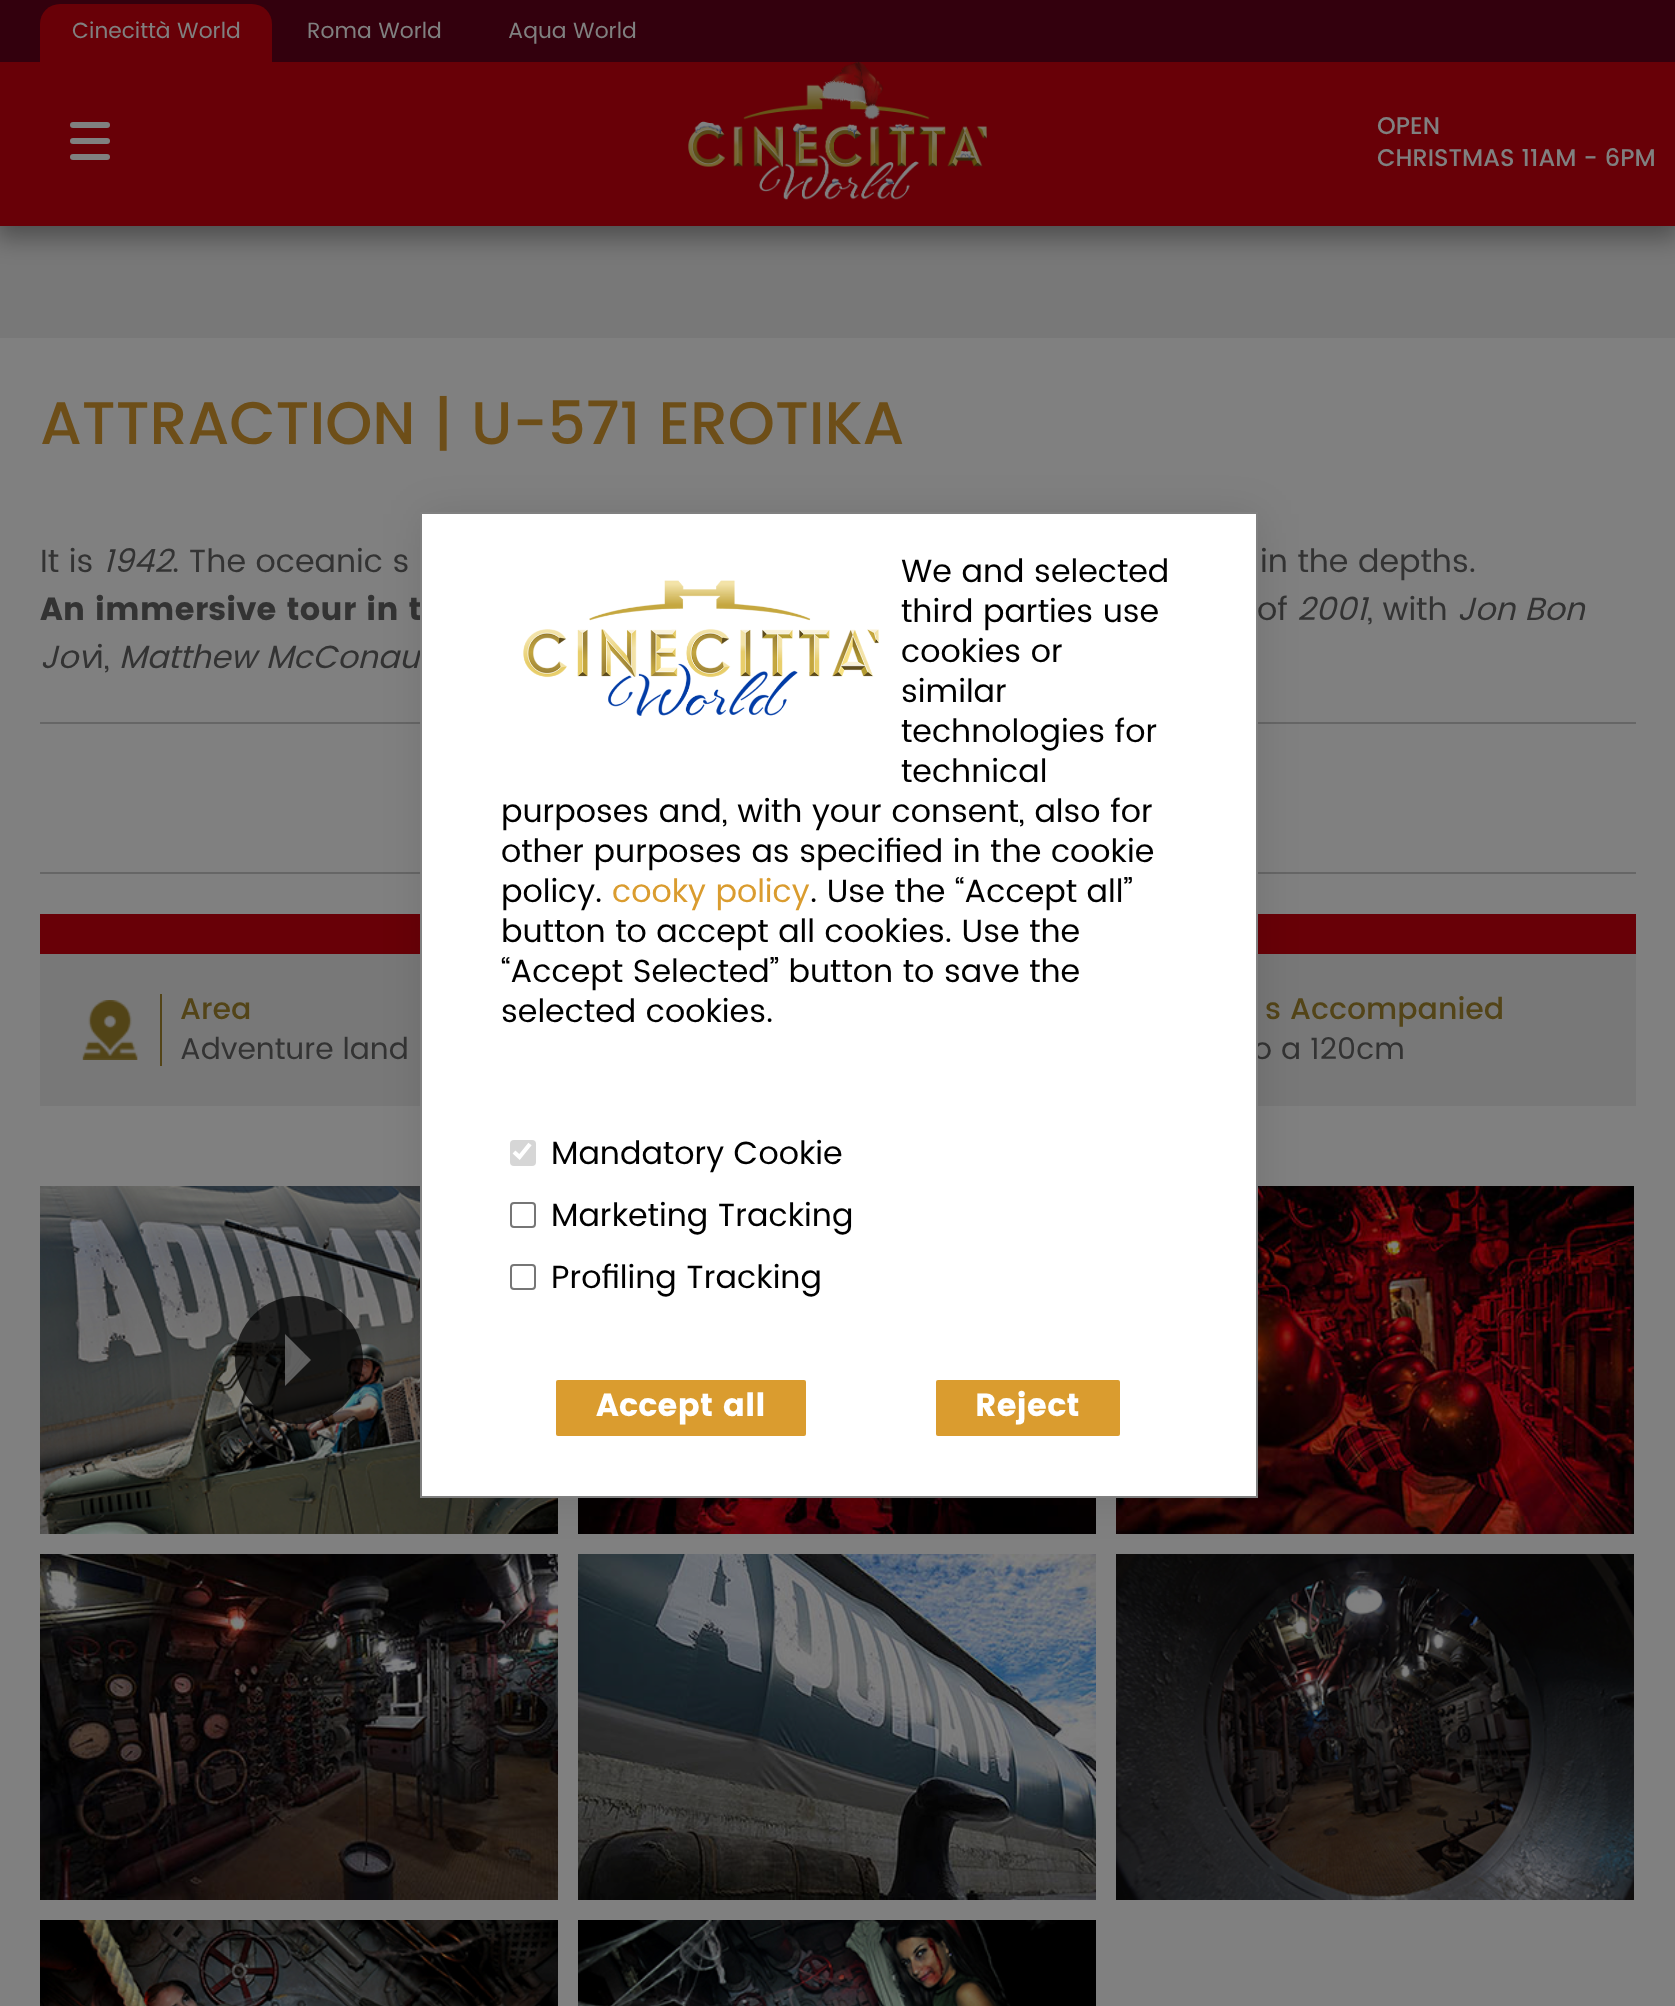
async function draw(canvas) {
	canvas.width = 1675;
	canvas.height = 2006;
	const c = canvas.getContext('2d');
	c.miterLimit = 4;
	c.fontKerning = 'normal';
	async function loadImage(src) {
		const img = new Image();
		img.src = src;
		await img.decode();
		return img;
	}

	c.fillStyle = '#808080';
	c.fillRect(0, 0, 1675, 2006);
	c.fillStyle = '#787878';
	c.fillRect(0, 226, 1675, 112);
	c.fillStyle = '#00000059';
	c.filter = 'blur(12px)';
	c.beginPath();
	c.rect(-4, 4, 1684, 234);
	c.fill();
	c.filter = 'none';
	c.fillStyle = '#33000d';
	c.fillRect(0, 0, 1675, 62);
	c.fillStyle = '#680007';
	c.beginPath();
	c.roundRect(40, 4, 232, 58, [20, 20, 0, 0]);
	c.fill();
	c.font = '22px Poppins';
	c.fillStyle = '#808080';
	for (const [text, x, y] of [
		['Cinecittà World', 72, 38],
		['Roma World', 307, 38],
		['Aqua World', 508, 38],
	]) {
		c.fillText(text, x, y);
	}
	c.fillStyle = '#680007';
	c.fillRect(0, 62, 1675, 164);
	c.fillStyle = '#808080';
	c.beginPath();
	c.roundRect(70, 138, 40, 6, 3);
	c.fill();
	c.beginPath();
	c.roundRect(70, 122, 40, 6, 3);
	c.fill();
	c.beginPath();
	c.roundRect(70, 154, 40, 6, 3);
	c.fill();
	c.drawImage(await loadImage('img1.png'), 688, 62, 299, 138);
	c.font = '500 24px Poppins';
	c.fillText('OPEN', 1377, 134);
	c.fillText('CHRISTMAS 11AM - 6PM', 1377, 166);
	c.font = '500 60px Poppins';
	c.fillStyle = '#6d4e18';
	c.fillText('ATTRACTION | U-571 EROTIKA', 40, 444);
	c.font = '32px Poppins';
	c.fillStyle = '#333';
	c.fillText('It is', 40, 572);
	c.font = 'italic 32px Poppins';
	c.fillText('1942', 103, 572);
	c.font = '32px Poppins';
	c.fillText('. The oceanic s', 172, 572);
	c.fillText('in the depths.', 1260, 572);
	c.font = 'bold 32px Poppins';
	c.fillText('An immersive tour in t', 40, 620);
	c.font = '32px Poppins';
	c.fillText('of', 1257, 620);
	c.font = 'italic 32px Poppins';
	c.fillText('2001', 1297, 620);
	c.font = '32px Poppins';
	c.fillText(', with', 1367, 620);
	c.font = 'italic 32px Poppins';
	c.fillText('Jon Bon', 1457, 620);
	c.fillText('Jov', 40, 668);
	c.font = '32px Poppins';
	c.fillText('i,', 96, 668);
	c.font = 'italic 32px Poppins';
	c.fillText('Matthew McConau', 119, 668);
	for (const [x, y, w, h, color] of [
		[40, 722, 1596, 2, '#666'],
		[40, 872, 1596, 2, '#666'],
		[40, 954, 1596, 152, '#787878'],
		[40, 914, 1596, 40, '#680007'],
	]) {
		c.fillStyle = color;
		c.fillRect(x, y, w, h);
	}
	c.drawImage(await loadImage('img2.png'), 82, 1000, 56, 60);
	c.fillStyle = '#534417';
	c.fillRect(160, 994, 2, 72);
	c.font = '500 30px Poppins';
	c.fillText('Area', 180, 1019);
	c.font = '30px Poppins';
	c.fillStyle = '#333';
	c.fillText('Adventure land', 180, 1059);
	c.font = '500 30px Poppins';
	c.fillStyle = '#534417';
	c.fillText('s Accompanied', 1265, 1019);
	c.font = '30px Poppins';
	c.fillStyle = '#333';
	c.fillText('o a 120cm', 1253, 1059);
	c.drawImage(await loadImage('img3.png'), 40, 1186, 518, 348);
	c.fillStyle = '#000000b3';
	c.beginPath();
	c.moveTo(363, 1360);
	c.bezierCurveTo(363, 1395, 334, 1424, 299, 1424);
	c.bezierCurveTo(264, 1424, 235, 1395, 235, 1360);
	c.bezierCurveTo(235, 1324, 264, 1296, 299, 1296);
	c.bezierCurveTo(334, 1296, 363, 1324, 363, 1360);
	c.closePath();
	c.fill();
	c.fillStyle = '#808080b3';
	c.beginPath();
	c.moveTo(285, 1334);
	c.lineTo(311, 1360);
	c.lineTo(285, 1386);
	c.closePath();
	c.fill();
	c.drawImage(await loadImage('img4.png'), 578, 1498, 518, 36);
	c.drawImage(await loadImage('img5.png'), 1116, 1186, 518, 348);
	c.drawImage(await loadImage('img6.png'), 40, 1554, 518, 346);
	c.drawImage(await loadImage('img7.png'), 578, 1554, 518, 346);
	c.drawImage(await loadImage('img8.png'), 1116, 1554, 518, 346);
	c.drawImage(await loadImage('img9.png'), 40, 1920, 518, 86);
	c.drawImage(await loadImage('img10.png'), 578, 1920, 518, 86);
	c.fillStyle = '#0000001a';
	c.filter = 'blur(20px)';
	c.beginPath();
	c.rect(422, 514, 838, 986);
	c.fill();
	c.filter = 'none';
	c.fillStyle = '#fff';
	c.beginPath();
	c.rect(421, 513, 836, 984);
	c.fill();
	c.strokeStyle = '#808080';
	c.lineWidth = 2;
	c.stroke();
	c.font = '32px Poppins';
	c.fillStyle = '#000';
	c.fillText('We and selected', 901, 582);
	c.drawImage(await loadImage('img11.png'), 523, 580, 356, 136);
	for (const [text, x, y] of [
		['third parties use', 901, 622],
		['cookies or', 901, 662],
		['similar', 901, 702],
		['technologies for', 901, 742],
		['technical', 901, 782],
		['purposes and, with your consent, also for', 501, 822],
		['other purposes as specified in the cookie', 501, 862],
		['policy.', 501, 902],
	]) {
		c.fillText(text, x, y);
	}
	c.fillStyle = '#da9c2f';
	c.fillText('cooky policy', 612, 902);
	c.fillStyle = '#000';
	for (const [text, x, y] of [
		['. Use the “Accept all”', 810, 902],
		['button to accept all cookies. Use the', 501, 942],
		['“Accept Selected” button to save the', 501, 982],
		['selected cookies.', 501, 1022],
	]) {
		c.fillText(text, x, y);
	}
	c.fillStyle = '#d6d6d6';
	c.beginPath();
	c.roundRect(510, 1140, 26, 26, 4);
	c.fill();
	c.beginPath();
	c.moveTo(514, 1152);
	c.lineTo(519.5, 1157);
	c.lineTo(530, 1144);
	c.strokeStyle = '#fff';
	c.lineWidth = 4.2;
	c.stroke();
	c.fillStyle = '#000';
	c.fillText('Mandatory Cookie', 551, 1164);
	c.beginPath();
	c.roundRect(511, 1203, 24, 24, 3);
	c.strokeStyle = '#767676';
	c.lineWidth = 2;
	c.stroke();
	c.fillText('Marketing Tracking', 551, 1226);
	c.beginPath();
	c.roundRect(511, 1265, 24, 24, 3);
	c.stroke();
	c.fillText('Profiling Tracking', 551, 1288);
	c.fillStyle = '#da9c2f';
	c.beginPath();
	c.roundRect(556, 1380, 250, 56, 2);
	c.fill();
	c.font = 'bold 32px Poppins';
	c.fillStyle = '#fff';
	c.fillText('Accept all', 596, 1416);
	c.fillStyle = '#da9c2f';
	c.beginPath();
	c.roundRect(936, 1380, 184, 56, 2);
	c.fill();
	c.fillStyle = '#fff';
	c.fillText('Reject', 975, 1416);
}

draw(document.querySelector('canvas'));
